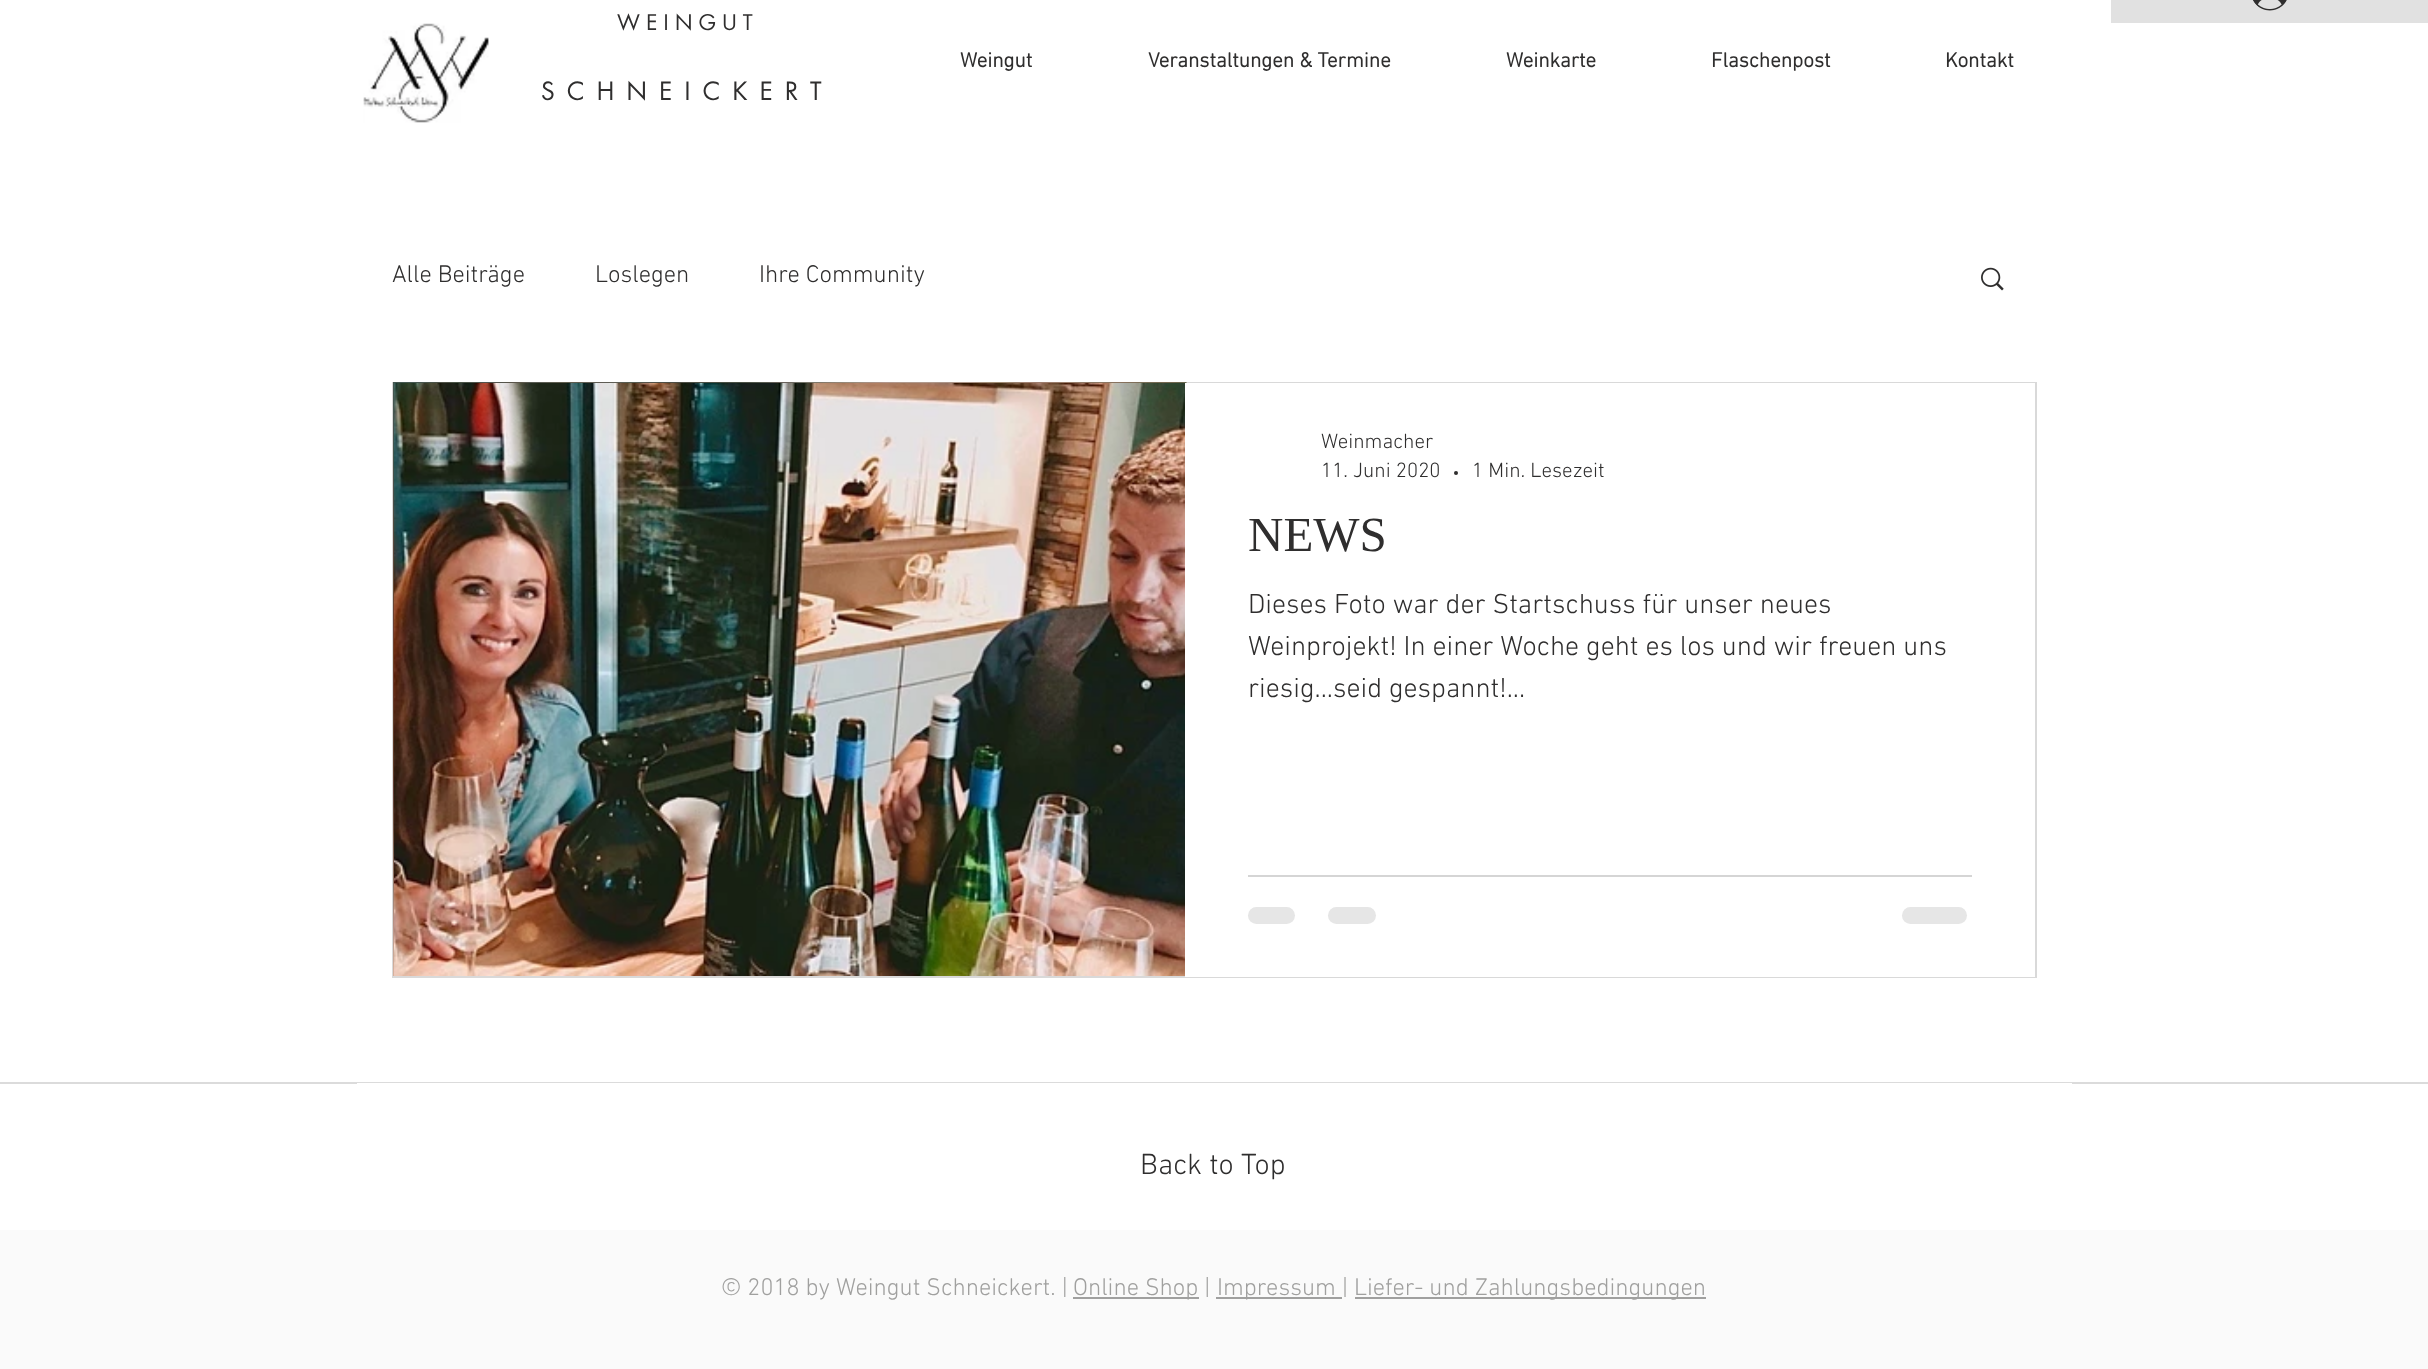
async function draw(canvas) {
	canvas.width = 2428;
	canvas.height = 1369;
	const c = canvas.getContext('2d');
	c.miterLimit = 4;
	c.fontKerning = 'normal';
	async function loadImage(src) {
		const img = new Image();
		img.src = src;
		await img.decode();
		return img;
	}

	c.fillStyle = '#fff';
	c.fillRect(0, 0, 2428, 1369);
	c.drawImage(await loadImage('img1.png'), 363, 23, 126, 100);
	c.letterSpacing = '6.25px';
	c.font = '21px futura';
	c.fillStyle = '#2f2e2e';
	c.fillText('WEINGUT', 617, 30);
	c.letterSpacing = '12.25px';
	c.font = '24.5px futura';
	c.fillText('SCHNEICKERT', 541, 100);
	c.letterSpacing = '0px';
	c.font = 'bold 21px "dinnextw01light"';
	for (const [text, x, y] of [
		['Weingut', 960, 67],
		['Veranstaltungen & Termine', 1148, 67],
		['Weinkarte', 1506, 67],
		['Flaschenpost', 1711, 67],
		['Kontakt', 1945, 67],
	]) {
		c.fillText(text, x, y);
	}
	c.fillStyle = '#e1e1e1';
	c.fillRect(2111, 0, 317, 23);
	c.drawImage(await loadImage('img2.png'), 2253, 0, 34, 11);
	c.font = '300 24.5px "dinnextw01light"';
	c.fillStyle = '#2f2e2e';
	for (const [text, x, y] of [
		['Alle Beiträge', 392, 282],
		['Loslegen', 595, 282],
		['Ihre Community', 759, 282],
	]) {
		c.fillText(text, x, y);
	}
	c.drawImage(await loadImage('img3.png'), 1981, 267, 23, 24);
	c.strokeStyle = '#d9d9d9';
	c.lineWidth = 2;
	c.strokeRect(393, 383, 1643, 594);
	c.drawImage(await loadImage('img4.png'), 393, 382, 794, 594);
	c.drawImage(await loadImage('img5.png'), 394, 383, 791, 593);
	c.fillStyle = '#fff';
	c.fillRect(1185, 383, 850, 594);
	c.font = '300 21px "dinnextw01light"';
	c.fillStyle = '#2f2e2e';
	c.fillText('Weinmacher', 1321, 448);
	c.fillText('11. Juni 2020', 1321, 477);
	c.beginPath();
	c.arc(1456, 473, 2, 0, 2 * Math.PI);
	c.fill();
	c.fillText('1 Min. Lesezeit', 1472, 477);
	c.font = '49px Liberation Serif';
	c.fillText('NEWS', 1248, 551);
	c.font = '300 28px "dinnextw01light"';
	for (const [text, x, y] of [
		['Dieses Foto war der Startschuss für unser neues', 1248, 613],
		['Weinprojekt! In einer Woche geht es los und wir freuen uns', 1248, 655],
		['riesig...seid gespannt!...', 1248, 697],
	]) {
		c.fillText(text, x, y);
	}
	c.fillStyle = '#d5d5d5';
	c.fillRect(1248, 875, 724, 2);
	c.fillStyle = '#e6e6e6';
	c.beginPath();
	c.roundRect(1248, 907, 47, 17, 8.5);
	c.fill();
	c.beginPath();
	c.roundRect(1328, 907, 48, 17, 8.5);
	c.fill();
	c.beginPath();
	c.roundRect(1902, 907, 65, 17, 8.5);
	c.fill();
	c.fillStyle = '#dbdbdb';
	c.fillRect(0, 1082, 2428, 2);
	c.fillStyle = '#fff';
	c.fillRect(357, 1083, 1715, 1);
	c.font = '300 29.75px "dinnextw01light"';
	c.fillStyle = '#2f2e2e';
	c.fillText('Back to Top', 1140, 1174);
	c.fillStyle = '#fafafa';
	c.fillRect(0, 1230, 2428, 139);
	c.font = '300 24.5px "dinnextw01light"';
	c.fillStyle = '#a0a09f';
	c.fillText('© 2018 by Weingut Schneickert. |', 721, 1295);
	c.fillRect(1073, 1297, 126, 2);
	c.fillText('Online Shop |', 1073, 1295);
	c.fillRect(1216, 1297, 126, 2);
	c.fillText('Impressum |', 1217, 1295);
	c.fillRect(1355, 1297, 351, 2);
	c.fillText('Liefer- und Zahlungsbedingungen', 1354, 1295);
}

draw(document.querySelector('canvas'));
